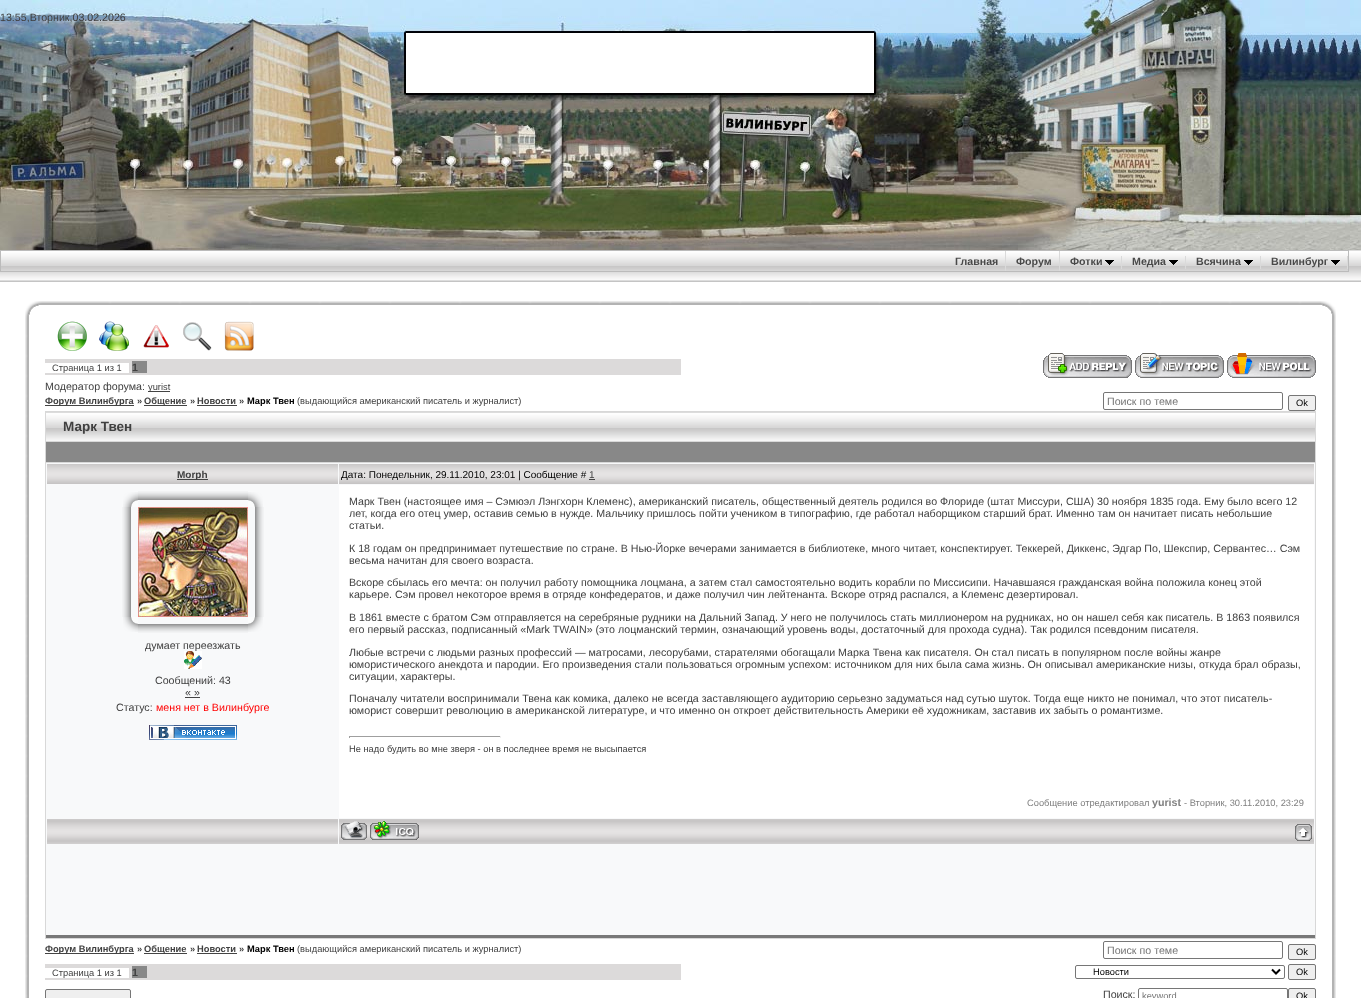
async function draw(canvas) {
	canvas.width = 1361;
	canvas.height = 998;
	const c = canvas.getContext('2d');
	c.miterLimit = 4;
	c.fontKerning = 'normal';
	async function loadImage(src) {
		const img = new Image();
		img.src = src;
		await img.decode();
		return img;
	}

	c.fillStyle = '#fff';
	c.fillRect(0, 0, 1361, 998);
	c.drawImage(await loadImage('img1.png'), 1250, 0, 111, 250);
	c.drawImage(await loadImage('img2.png'), 0, 0, 406, 33);
	c.font = '10.67px Liberation Sans';
	c.fillStyle = '#404040';
	c.fillText('13:55,Вторник,03.02.2026', 0, 21);
	c.drawImage(await loadImage('img3.png'), 406, 0, 468, 33);
	c.drawImage(await loadImage('img4.png'), 874, 0, 376, 33);
	c.fillStyle = '#baddfb';
	c.fillRect(1253, 32, 4, 1);
	c.drawImage(await loadImage('img5.png'), 0, 33, 406, 60);
	c.drawImage(await loadImage('img6.png'), 874, 33, 376, 60);
	c.drawImage(await loadImage('img7.png'), 1250, 33, 10, 60);
	c.drawImage(await loadImage('img8.png'), 0, 93, 406, 157);
	c.drawImage(await loadImage('img9.png'), 406, 93, 468, 157);
	c.drawImage(await loadImage('img10.png'), 874, 93, 376, 157);
	c.drawImage(await loadImage('img11.png'), 1250, 93, 10, 157);
	c.drawImage(await loadImage('img12.png'), 0, 250, 1361, 32);
	c.strokeStyle = '#bbb';
	c.strokeRect(0.5, 250.5, 1348, 21);
	c.font = 'bold 10.67px Liberation Sans';
	c.fillStyle = '#494949';
	c.fillText('Главная', 955, 265);
	c.fillStyle = '#dadada';
	c.fillRect(1005, 251, 1, 20);
	c.fillStyle = '#494949';
	c.fillText('Форум', 1016, 265);
	c.fillStyle = '#dadada';
	c.fillRect(1059, 251, 1, 20);
	c.fillStyle = '#494949';
	c.fillText('Фотки', 1070, 265);
	c.fillStyle = '#dadada';
	c.fillRect(1121, 256, 1, 13);
	c.drawImage(await loadImage('img13.png'), 1105, 260, 9, 5);
	c.fillStyle = '#494949';
	c.fillText('Медиа', 1132, 265);
	c.fillStyle = '#dadada';
	c.fillRect(1185, 256, 1, 13);
	c.drawImage(await loadImage('img13.png'), 1169, 260, 9, 5);
	c.fillStyle = '#494949';
	c.fillText('Всячина', 1196, 265);
	c.fillStyle = '#dadada';
	c.fillRect(1260, 256, 1, 13);
	c.drawImage(await loadImage('img13.png'), 1244, 260, 9, 5);
	c.fillStyle = '#494949';
	c.fillText('Вилинбург', 1271, 265);
	c.fillStyle = '#dadada';
	c.fillRect(1347, 256, 1, 13);
	c.drawImage(await loadImage('img13.png'), 1331, 260, 9, 5);
	c.drawImage(await loadImage('img14.png'), 25, 301, 15, 15);
	c.drawImage(await loadImage('img15.png'), 40, 301, 1281, 4);
	c.drawImage(await loadImage('img16.png'), 1321, 301, 15, 15);
	c.drawImage(await loadImage('img17.png'), 25, 316, 4, 682);
	c.drawImage(await loadImage('img18.png'), 57, 321, 30, 30);
	c.drawImage(await loadImage('img19.png'), 99, 321, 30, 30);
	c.drawImage(await loadImage('img20.png'), 143, 325, 26, 23);
	c.drawImage(await loadImage('img21.png'), 183, 322, 29, 29);
	c.drawImage(await loadImage('img22.png'), 224, 321, 30, 30);
	c.fillStyle = '#dcdada';
	c.fillRect(45, 359, 636, 16);
	c.fillStyle = '#fff';
	c.fillRect(45, 363, 84, 10);
	c.font = '9.3px Liberation Sans';
	c.fillStyle = '#404040';
	c.fillText('Страница 1 из 1', 52, 371);
	c.fillStyle = '#888';
	c.fillRect(132, 361, 15, 12);
	c.font = 'bold 10.67px Liberation Sans';
	c.fillStyle = '#404040';
	c.fillText('1', 132, 371);
	c.drawImage(await loadImage('img23.png'), 1043, 353, 89, 25);
	c.drawImage(await loadImage('img24.png'), 1135, 353, 89, 25);
	c.drawImage(await loadImage('img25.png'), 1227, 353, 89, 25);
	c.font = '10.67px Liberation Sans';
	c.fillText('Модератор форума:', 45, 390);
	c.fillStyle = '#444';
	c.fillRect(148, 391, 22, 1);
	c.font = '9.3px Liberation Sans';
	c.fillStyle = '#404040';
	c.fillText('yurist', 148, 390);
	c.fillStyle = '#444';
	c.fillRect(45, 405, 89, 1);
	c.font = 'bold 9.3px Liberation Sans';
	c.fillStyle = '#404040';
	c.fillText('Форум Вилинбурга', 45, 404);
	c.fillText('»', 137, 404);
	c.fillStyle = '#444';
	c.fillRect(144, 405, 43, 1);
	c.fillStyle = '#404040';
	for (const [text, x, y] of [
		['Общение', 144, 404],
		['»', 190, 404],
		['Новости', 197, 404],
	]) {
		c.fillText(text, x, y);
	}
	c.fillStyle = '#444';
	c.fillRect(197, 405, 40, 1);
	c.fillStyle = '#404040';
	c.fillText('»', 239, 404);
	c.fillStyle = '#000';
	c.fillText('Марк Твен', 247, 404);
	c.font = '9.3px Liberation Sans';
	c.fillStyle = '#404040';
	c.fillText('(выдающийся американский писатель и журналист)', 297, 404);
	c.beginPath();
	c.roundRect(1103.5, 392.5, 179, 17, 1.5);
	c.strokeStyle = '#767676';
	c.stroke();
	c.font = '10.67px Liberation Sans';
	c.fillStyle = '#757575';
	c.fillText('Поиск по теме', 1107, 405);
	c.fillStyle = '#efefef';
	c.beginPath();
	c.roundRect(1288.5, 395.5, 27, 15, 1.5);
	c.fill();
	c.stroke();
	c.font = '9.3px Liberation Sans';
	c.fillStyle = '#000';
	c.fillText('Ok', 1296, 406);
	c.fillStyle = '#d8d8d8';
	c.fillRect(45, 411, 1271, 528);
	c.drawImage(await loadImage('img26.png'), 46, 412, 1269, 29);
	c.font = 'bold 13.5px Liberation Sans';
	c.fillStyle = '#404040';
	c.fillText('Марк Твен', 63, 431);
	for (const [x, y, w, h, color] of [
		[46, 442, 1269, 20, '#888'],
		[46, 463, 1269, 472, '#f8f9fa'],
		[46, 935, 1269, 3, '#787878'],
	]) {
		c.fillStyle = color;
		c.fillRect(x, y, w, h);
	}
	c.drawImage(await loadImage('img27.png'), 47, 464, 291, 20);
	c.fillStyle = '#444';
	c.fillRect(177, 479, 31, 1);
	c.font = 'bold 10px Liberation Sans';
	c.fillStyle = '#404040';
	c.fillText('Morph', 177, 478);
	c.drawImage(await loadImage('img28.png'), 339, 464, 975, 20);
	c.font = '10px Liberation Sans';
	c.fillStyle = '#000';
	c.fillText('Дата: Понедельник, 29.11.2010, 23:01 | Сообщение #', 341, 478);
	c.fillStyle = '#404040';
	c.fillText('1', 589, 478);
	c.fillStyle = '#444';
	c.fillRect(589, 479, 6, 1);
	c.drawImage(await loadImage('img29.png'), 123, 492, 15, 15);
	c.drawImage(await loadImage('img30.png'), 138, 491, 110, 9);
	c.drawImage(await loadImage('img31.png'), 248, 492, 15, 15);
	c.drawImage(await loadImage('img32.png'), 122, 507, 9, 110);
	c.drawImage(await loadImage('img33.png'), 138, 507, 110, 110);
	c.drawImage(await loadImage('img34.png'), 255, 507, 9, 110);
	c.drawImage(await loadImage('img35.png'), 123, 617, 15, 15);
	c.drawImage(await loadImage('img36.png'), 138, 624, 110, 9);
	c.drawImage(await loadImage('img37.png'), 248, 617, 15, 15);
	c.font = '10.67px Liberation Sans';
	c.fillStyle = '#404040';
	c.fillText('думает переезжать', 145, 649);
	c.drawImage(await loadImage('img38.png'), 184, 651, 18, 18);
	c.fillText('Сообщений: 43', 155, 684);
	c.fillText('« »', 185, 696);
	c.fillStyle = '#444';
	c.fillRect(185, 697, 15, 1);
	c.fillStyle = '#404040';
	c.fillText('Статус:', 116, 711);
	c.fillStyle = '#f00';
	c.fillText('меня нет в Вилинбурге', 156, 711);
	c.drawImage(await loadImage('img39.png'), 149, 725, 88, 15);
	c.fillStyle = '#fff';
	c.fillRect(339, 485, 975, 333);
	c.fillStyle = '#404040';
	for (const [text, x, y] of [
		['Марк Твен (настоящее имя – Сэмюэл Лэнгхорн Клеменс), американский писатель, общественный деятель родился во Флориде (штат Миссури, США) 30 ноября 1835 года. Ему было всего 12', 349, 505],
		['лет, когда его отец умер, оставив семью в нужде. Мальчику пришлось пойти учеником в типографию, где работал наборщиком старший брат. Именно там он начитает писать небольшие', 349, 517],
		['статьи.', 349, 529],
		['К 18 годам он предпринимает путешествие по стране. В Нью-Йорке вечерами занимается в библиотеке, много читает, конспектирует. Теккерей, Диккенс, Эдгар По, Шекспир, Сервантес… Сэм', 349, 552],
		['весьма начитан для своего возраста.', 349, 564],
		['Вскоре сбылась его мечта: он получил работу помощника лоцмана, а затем стал самостоятельно водить корабли по Миссисипи. Начавшаяся гражданская война положила конец этой', 349, 586],
		['карьере. Сэм провел некоторое время в отряде конфедератов, и даже получил чин лейтенанта. Вскоре отряд распался, а Клеменс дезертировал.', 349, 598],
		['В 1861 вместе с братом Сэм отправляется на серебряные рудники на Дальний Запад. У него не получилось стать миллионером на рудниках, но он нашел себя как писатель. В 1863 появился', 349, 621],
		['его первый рассказ, подписанный «Mark TWAIN» (это лоцманский термин, означающий уровень воды, достаточный для прохода судна). Так родился псевдоним писателя.', 349, 633],
		['Любые встречи с людьми разных профессий — матросами, лесорубами, старателями обогащали Марка Твена как писателя. Он стал писать в популярном после войны жанре', 349, 656],
		['юмористического анекдота и пародии. Его произведения стали пользоваться огромным успехом: источником для них была сама жизнь. Он описывал американские низы, откуда брал образы,', 349, 668],
		['ситуации, характеры.', 349, 680],
		['Поначалу читатели воспринимали Твена как комика, далеко не всегда заставляющего аудиторию серьезно задуматься над сутью шуток. Тогда еще никто не понимал, что этот писатель-', 349, 702],
		['юморист совершит революцию в американской литературе, и что именно он откроет действительность Америки её художникам, заставив их забыть о романтизме.', 349, 714],
	]) {
		c.fillText(text, x, y);
	}
	for (const [x, y, w, h, color] of [
		[349, 736, 152, 1, '#9f9f9f'],
		[500, 736, 1, 2, '#eee'],
		[349, 736, 1, 2, '#9f9f9f'],
	]) {
		c.fillStyle = color;
		c.fillRect(x, y, w, h);
	}
	c.font = '9.3px Liberation Sans';
	c.fillStyle = '#404040';
	c.fillText('Не надо будить во мне зверя - он в последнее время не высыпается', 349, 752);
	c.fillStyle = '#808080';
	c.fillText('Сообщение отредактировал', 1027, 806);
	c.font = 'bold 10.67px Liberation Sans';
	c.fillText('yurist', 1152, 806);
	c.font = '9.3px Liberation Sans';
	c.fillText('- Вторник, 30.11.2010, 23:29', 1184, 806);
	c.drawImage(await loadImage('img40.png'), 47, 819, 291, 25);
	c.drawImage(await loadImage('img41.png'), 339, 819, 975, 25);
	c.drawImage(await loadImage('img42.png'), 341, 821, 26, 19);
	c.drawImage(await loadImage('img43.png'), 370, 821, 49, 19);
	c.drawImage(await loadImage('img44.png'), 1295, 824, 17, 17);
	c.fillStyle = '#444';
	c.fillRect(45, 953, 89, 1);
	c.font = 'bold 9.3px Liberation Sans';
	c.fillStyle = '#404040';
	c.fillText('Форум Вилинбурга', 45, 952);
	c.fillText('»', 137, 952);
	c.fillStyle = '#444';
	c.fillRect(144, 953, 43, 1);
	c.fillStyle = '#404040';
	for (const [text, x, y] of [
		['Общение', 144, 952],
		['»', 190, 952],
		['Новости', 197, 952],
	]) {
		c.fillText(text, x, y);
	}
	c.fillStyle = '#444';
	c.fillRect(197, 953, 40, 1);
	c.fillStyle = '#404040';
	c.fillText('»', 239, 952);
	c.fillStyle = '#000';
	c.fillText('Марк Твен', 247, 952);
	c.font = '9.3px Liberation Sans';
	c.fillStyle = '#404040';
	c.fillText('(выдающийся американский писатель и журналист)', 297, 952);
	c.beginPath();
	c.roundRect(1103.5, 941.5, 179, 17, 1.5);
	c.stroke();
	c.font = '10.67px Liberation Sans';
	c.fillStyle = '#757575';
	c.fillText('Поиск по теме', 1107, 954);
	c.fillStyle = '#efefef';
	c.beginPath();
	c.roundRect(1288.5, 944.5, 27, 15, 1.5);
	c.fill();
	c.stroke();
	c.font = '9.3px Liberation Sans';
	c.fillStyle = '#000';
	c.fillText('Ok', 1296, 955);
	c.fillStyle = '#dcdada';
	c.fillRect(45, 964, 636, 16);
	c.fillStyle = '#fff';
	c.fillRect(45, 968, 84, 10);
	c.fillStyle = '#404040';
	c.fillText('Страница 1 из 1', 52, 976);
	c.fillStyle = '#888';
	c.fillRect(132, 966, 15, 12);
	c.font = 'bold 10.67px Liberation Sans';
	c.fillStyle = '#404040';
	c.fillText('1', 132, 976);
	c.beginPath();
	c.roundRect(1075.5, 965.5, 209, 13, 1.5);
	c.stroke();
	c.beginPath();
	c.moveTo(1272, 969.5);
	c.lineTo(1276, 973.5);
	c.lineTo(1280, 969.5);
	c.strokeStyle = '#000';
	c.lineWidth = 2;
	c.stroke();
	c.font = '9.3px Liberation Sans';
	c.fillStyle = '#000';
	c.fillText('Новости', 1093, 975);
	c.fillStyle = '#efefef';
	c.beginPath();
	c.roundRect(1288.5, 964.5, 27, 15, 1.5);
	c.fill();
	c.strokeStyle = '#767676';
	c.lineWidth = 1;
	c.stroke();
	c.fillStyle = '#000';
	c.fillText('Ok', 1296, 975);
	c.fillStyle = '#efefef';
	c.beginPath();
	c.roundRect(45.5, 989.5, 85, 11, 1.5);
	c.fill();
	c.stroke();
	c.font = '10.67px Liberation Sans';
	c.fillStyle = '#404040';
	c.fillText('Поиск:', 1103, 998);
	c.beginPath();
	c.roundRect(1138.5, 988.5, 149, 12, 1.5);
	c.stroke();
	c.font = '9.3px Liberation Sans';
	c.fillStyle = '#757575';
	c.fillText('keyword', 1142, 999);
	c.fillStyle = '#efefef';
	c.beginPath();
	c.roundRect(1288.5, 988.5, 27, 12, 1.5);
	c.fill();
	c.stroke();
	c.fillStyle = '#000';
	c.fillText('Ok', 1296, 999);
	c.drawImage(await loadImage('img45.png'), 1332, 316, 4, 682);
}

draw(document.querySelector('canvas'));
